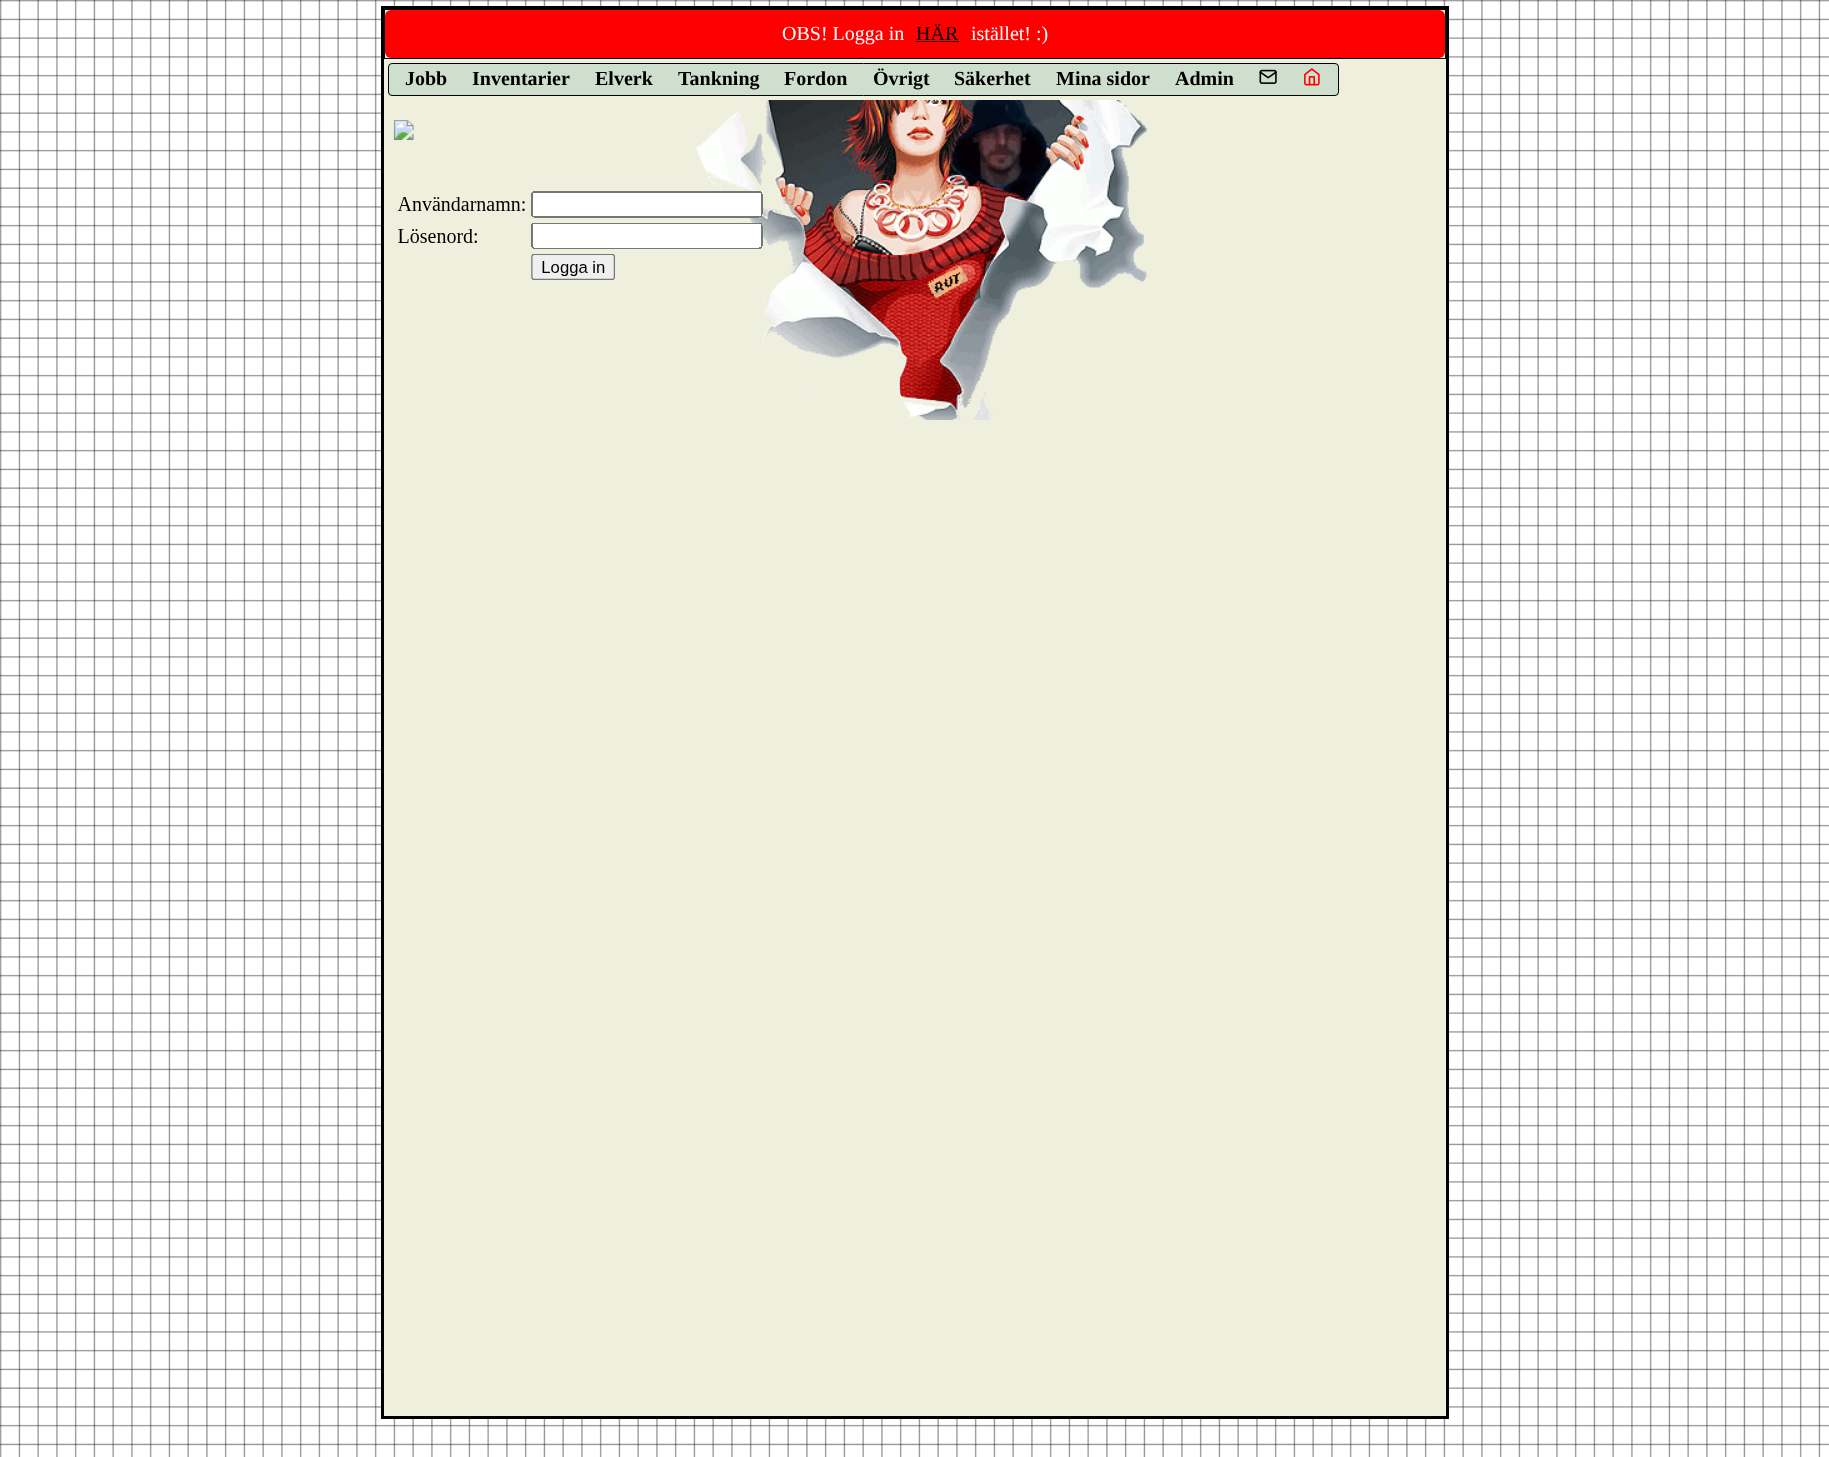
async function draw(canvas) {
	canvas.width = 1829;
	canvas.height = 1457;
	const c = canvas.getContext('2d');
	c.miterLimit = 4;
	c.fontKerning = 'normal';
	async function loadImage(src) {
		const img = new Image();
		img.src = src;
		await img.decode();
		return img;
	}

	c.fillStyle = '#fff';
	c.fillRect(0, 0, 1829, 1457);
	c.drawImage(await loadImage('img1.png'), 0, 0, 1829, 1457);
	c.fillStyle = '#efefde';
	c.fillRect(384, 10, 1062, 1406);
	c.strokeStyle = '#000';
	c.lineWidth = 3;
	c.strokeRect(382.5, 7.5, 1065, 1410);
	c.lineWidth = 1;
	c.strokeRect(384.5, 9.5, 1061, 49);
	c.fillStyle = '#f00';
	c.beginPath();
	c.roundRect(385, 10, 1060, 48, 6);
	c.fill();
	c.font = '20px Liberation Serif';
	c.fillStyle = '#fff';
	c.fillText('OBS! Logga in', 782, 40);
	c.fillStyle = '#000';
	c.fillText('HÄR', 916, 40);
	c.fillRect(916, 41, 43, 1);
	c.fillStyle = '#fff';
	c.fillText('istället! :)', 971, 40);
	c.fillStyle = '#cedfce';
	c.beginPath();
	c.roundRect(388.5, 63.5, 950, 32, 3.5);
	c.fill();
	c.stroke();
	c.font = 'bold 20px Liberation Serif';
	c.fillStyle = '#000';
	for (const [text, x, y] of [
		['Jobb', 405, 85],
		['Inventarier', 472, 85],
		['Elverk', 595, 85],
		['Tankning', 678, 85],
		['Fordon', 784, 85],
		['Övrigt', 873, 85],
		['Säkerhet', 954, 85],
		['Mina sidor', 1056, 85],
		['Admin', 1175, 85],
	]) {
		c.fillText(text, x, y);
	}
	c.drawImage(await loadImage('img2.png'), 1259, 69, 18, 15);
	c.drawImage(await loadImage('img3.png'), 1304, 68, 16, 18);
	c.drawImage(await loadImage('img4.png'), 393, 100, 755, 320);
}

draw(document.querySelector('canvas'));
